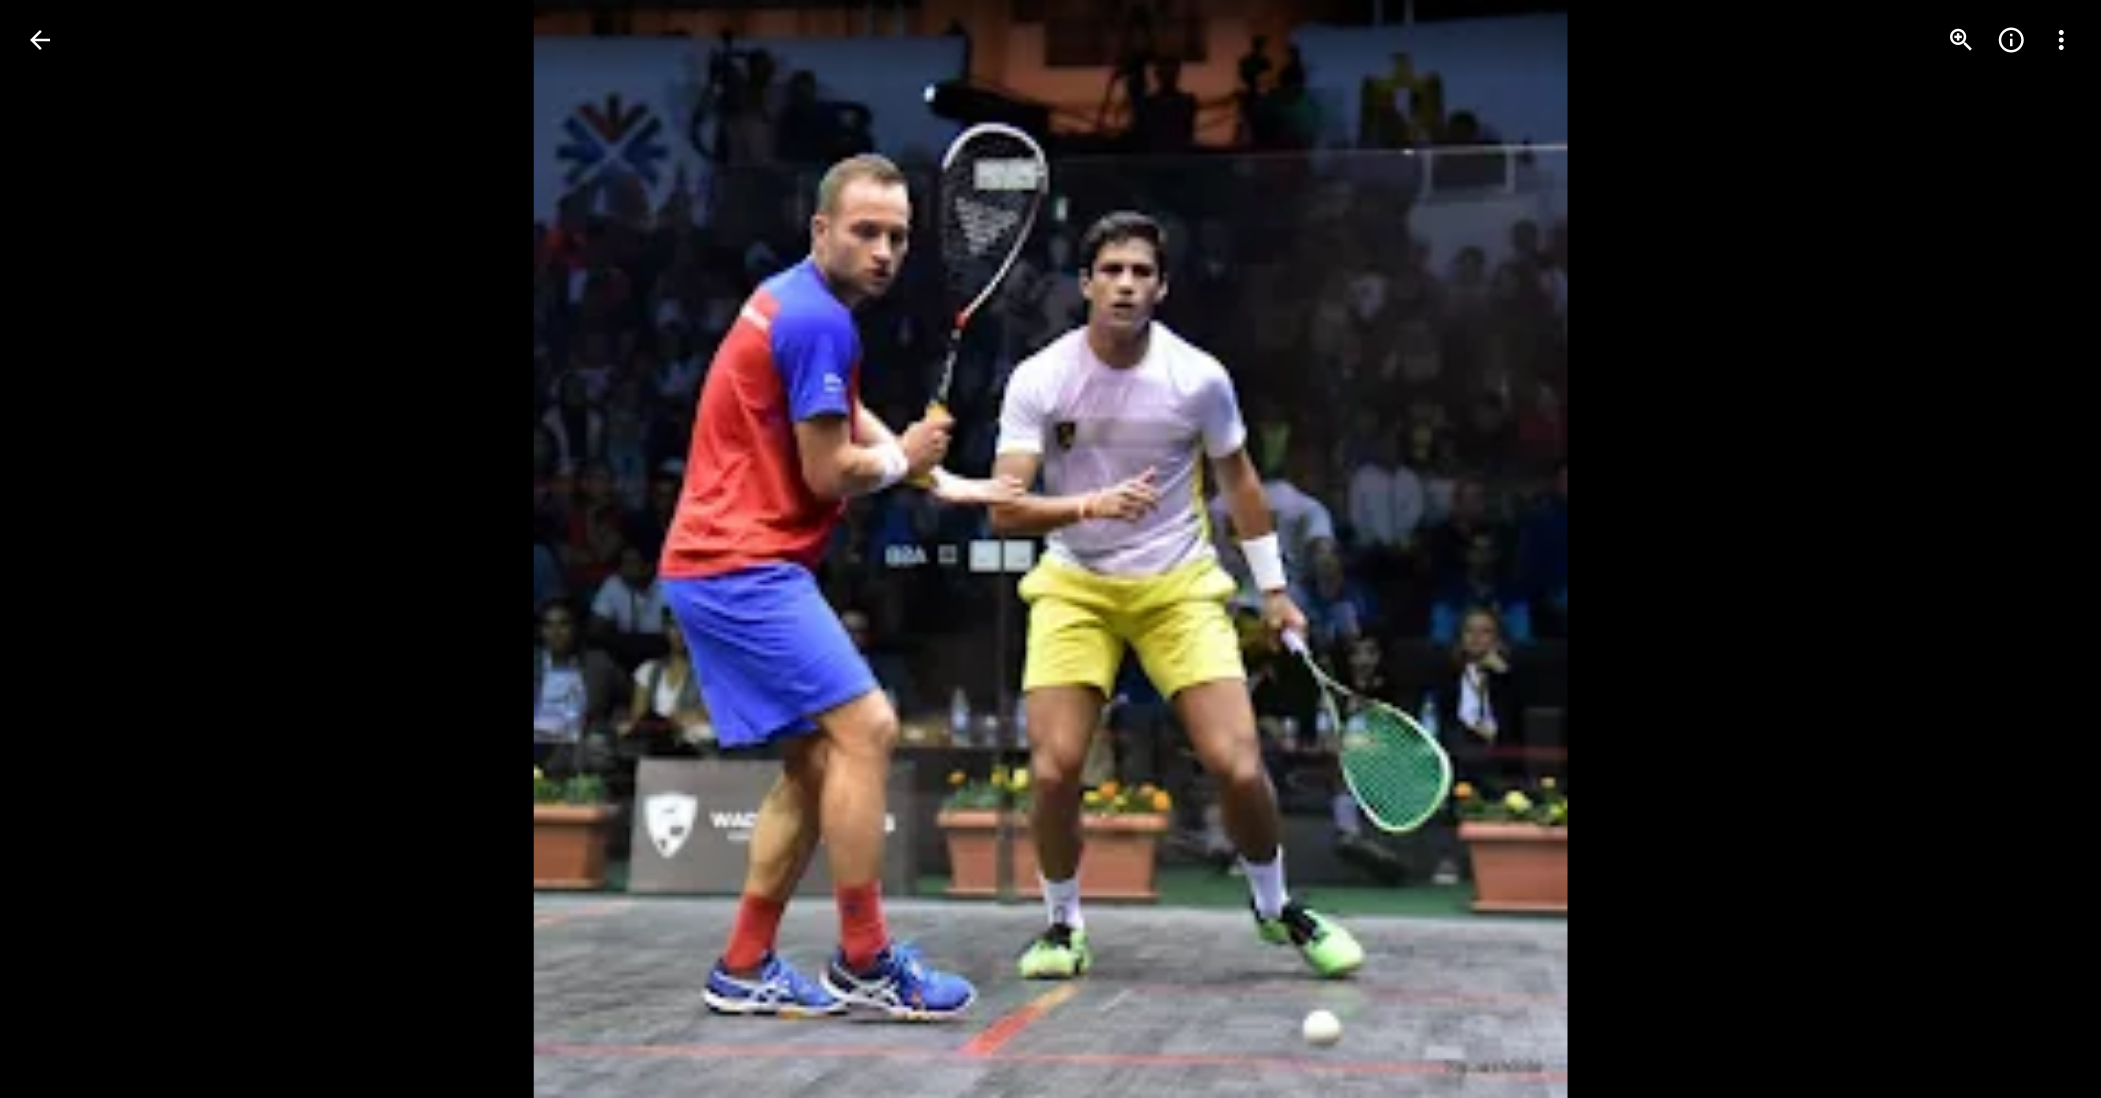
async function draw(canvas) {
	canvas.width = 2101;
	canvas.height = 1098;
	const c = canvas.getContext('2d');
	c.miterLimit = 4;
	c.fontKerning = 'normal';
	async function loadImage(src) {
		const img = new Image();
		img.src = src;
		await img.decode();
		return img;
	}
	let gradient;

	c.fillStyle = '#000';
	c.fillRect(0, 0, 2101, 1098);
	c.drawImage(await loadImage('img5.png'), 533, 0, 1035, 1098);
	gradient = c.createLinearGradient(1051, 0, 1051, 80);
	gradient.addColorStop(0, '#00000099');
	gradient.addColorStop(1, '#00000000');
	c.fillStyle = gradient;
	c.fillRect(533, 0, 1035, 77);
	c.drawImage(await loadImage('img1.png'), 30, 30, 20, 20);
	c.drawImage(await loadImage('img2.png'), 1950, 28, 22, 23);
	c.drawImage(await loadImage('img3.png'), 1998, 27, 26, 26);
	c.drawImage(await loadImage('img4.png'), 2058, 30, 6, 20);
}

draw(document.querySelector('canvas'));
